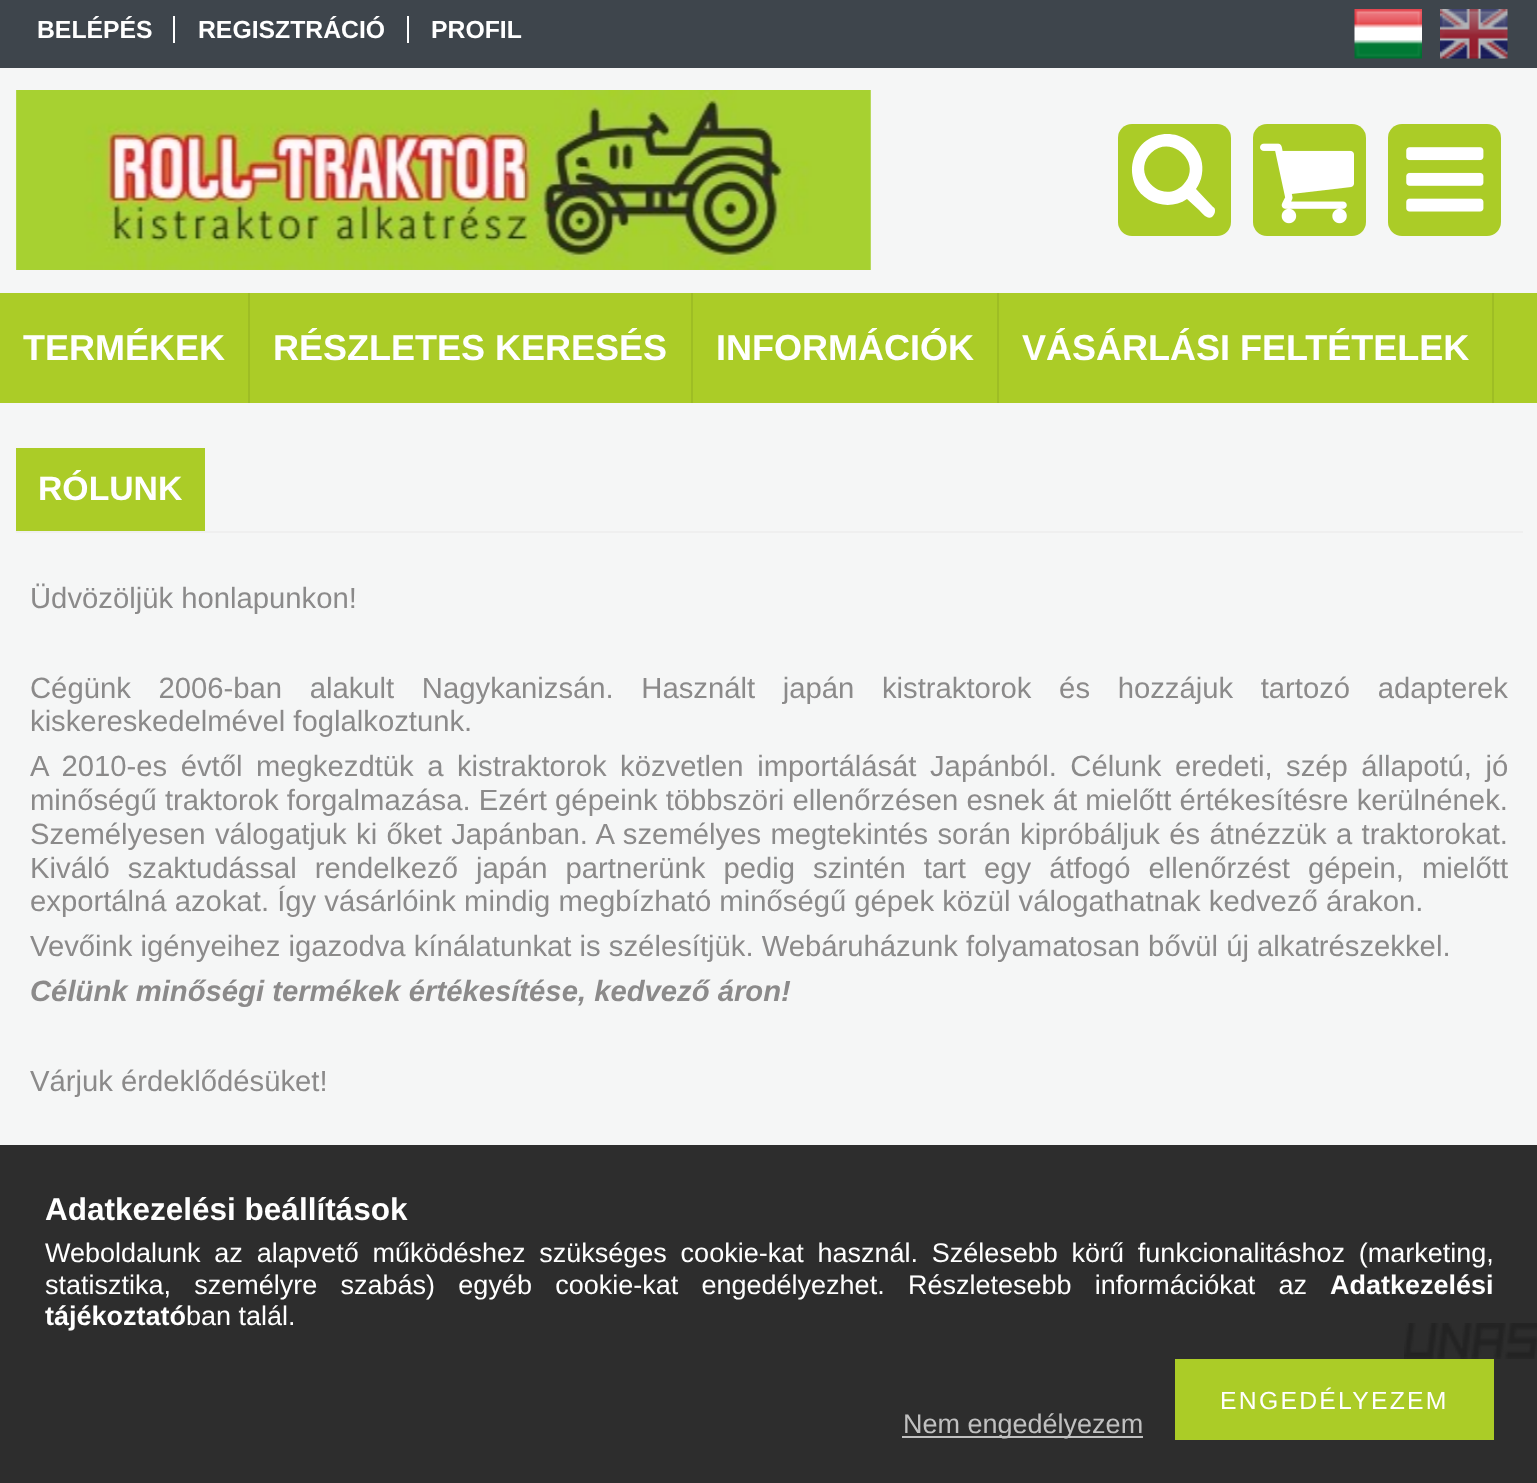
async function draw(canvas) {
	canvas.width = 1537;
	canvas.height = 1483;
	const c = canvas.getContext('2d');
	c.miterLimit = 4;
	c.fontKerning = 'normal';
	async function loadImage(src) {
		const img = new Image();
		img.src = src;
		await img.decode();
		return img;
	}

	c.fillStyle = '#f5f6f6';
	c.fillRect(0, 0, 1537, 1483);
	c.fillStyle = '#2d2d2d';
	c.fillRect(0, 1145, 1537, 338);
	c.fillStyle = '#3e454c';
	c.fillRect(0, 0, 1537, 68);
	c.font = 'bold 24.75px Liberation Sans';
	c.fillStyle = '#fff';
	c.fillText('BELÉPÉS', 37, 38);
	c.fillRect(173, 16, 2, 27);
	c.fillText('REGISZTRÁCIÓ', 198, 38);
	c.fillRect(407, 16, 2, 27);
	c.fillText('PROFIL', 431, 38);
	c.drawImage(await loadImage('img1.png'), 1354, 9, 68, 50);
	c.drawImage(await loadImage('img2.png'), 1440, 9, 68, 50);
	c.drawImage(await loadImage('img3.png'), 16, 90, 854, 180);
	c.fillStyle = '#b8d95e';
	c.fillRect(870, 90, 1, 180);
	c.fillStyle = '#abcc27';
	c.beginPath();
	c.roundRect(1118, 124, 113, 112, 14);
	c.fill();
	c.fillStyle = '#fff';
	c.beginPath();
	c.moveTo(1183, 185);
	c.bezierCurveTo(1204, 164, 1172, 133, 1151, 153);
	c.bezierCurveTo(1130, 174, 1162, 206, 1183, 185);
	c.closePath();
	c.moveTo(1215, 211);
	c.bezierCurveTo(1215, 213, 1214, 215, 1212, 217);
	c.bezierCurveTo(1207, 220, 1202, 213, 1199, 210);
	c.lineTo(1187, 199);
	c.bezierCurveTo(1170, 211, 1144, 204, 1135, 185);
	c.bezierCurveTo(1132, 177, 1131, 169, 1133, 161);
	c.bezierCurveTo(1142, 126, 1190, 125, 1201, 159);
	c.bezierCurveTo(1204, 169, 1202, 181, 1196, 189);
	c.lineTo(1213, 207);
	c.bezierCurveTo(1215, 208, 1215, 209, 1215, 211);
	c.closePath();
	c.fill();
	c.fillStyle = '#abcc27';
	c.beginPath();
	c.roundRect(1253, 124, 113, 112, 14);
	c.fill();
	c.drawImage(await loadImage('img4.png'), 1260, 143, 94, 81);
	c.beginPath();
	c.roundRect(1388, 124, 113, 112, 14);
	c.fill();
	c.drawImage(await loadImage('img5.png'), 1406, 147, 78, 65);
	c.fillRect(0, 293, 1537, 110);
	c.fillStyle = '#00000012';
	c.fillRect(248, 293, 2, 110);
	c.font = 'bold 36px Liberation Sans';
	c.fillStyle = '#fff';
	c.fillText('TERMÉKEK', 23, 360);
	c.fillStyle = '#00000012';
	c.fillRect(691, 293, 2, 110);
	c.fillStyle = '#fff';
	c.fillText('RÉSZLETES KERESÉS', 273, 360);
	c.fillStyle = '#00000012';
	c.fillRect(997, 293, 2, 110);
	c.fillStyle = '#fff';
	c.fillText('INFORMÁCIÓK', 716, 360);
	c.fillStyle = '#00000012';
	c.fillRect(1492, 293, 2, 110);
	c.fillStyle = '#fff';
	c.fillText('VÁSÁRLÁSI FELTÉTELEK', 1022, 360);
	c.fillStyle = '#efefef';
	c.fillRect(16, 531, 1507, 2);
	c.fillStyle = '#abcc27';
	c.fillRect(16, 448, 189, 83);
	c.font = 'bold 33.75px Liberation Sans';
	c.fillStyle = '#fff';
	c.fillText('RÓLUNK', 38, 500);
	c.font = '29.25px Liberation Sans';
	c.fillStyle = '#8b8a8a';
	c.fillText('Üdvözöljük honlapunkon!', 30, 608);
	c.wordSpacing = '19.5px';
	c.fillText('Cégünk 2006-ban alakult Nagykanizsán. Használt japán kistraktorok és hozzájuk tartozó adapterek', 30, 698);
	c.wordSpacing = '0px';
	c.fillText('kiskereskedelmével foglalkoztunk.', 30, 731);
	c.wordSpacing = '5.4px';
	c.fillText('A 2010-es évtől megkezdtük a kistraktorok közvetlen importálását Japánból. Célunk eredeti, szép állapotú, jó', 30, 776);
	c.wordSpacing = '0px';
	c.fillText('minőségű traktorok forgalmazása. Ezért gépeink többszöri ellenőrzésen esnek át mielőtt értékesítésre kerülnének.', 30, 810);
	c.wordSpacing = '1.25px';
	c.fillText('Személyesen válogatjuk ki őket Japánban. A személyes megtekintés során kipróbáljuk és átnézzük a traktorokat.', 30, 844);
	c.wordSpacing = '9.9px';
	c.fillText('Kiváló szaktudással rendelkező japán partnerünk pedig szintén tart egy átfogó ellenőrzést gépein, mielőtt', 30, 878);
	c.wordSpacing = '0px';
	c.fillText('exportálná azokat. Így vásárlóink mindig megbízható minőségű gépek közül válogathatnak kedvező árakon.', 30, 911);
	c.fillText('Vevőink igényeihez igazodva kínálatunkat is szélesítjük. Webáruházunk folyamatosan bővül új alkatrészekkel.', 30, 956);
	c.font = 'italic bold 29.25px Liberation Sans';
	c.fillText('Célünk minőségi termékek értékesítése, kedvező áron!', 30, 1001);
	c.font = '29.25px Liberation Sans';
	c.fillText('Várjuk érdeklődésüket!', 30, 1091);
	c.drawImage(await loadImage('img6.png'), 1404, 1323, 133, 36);
	c.font = 'bold 31.5px Liberation Sans';
	c.fillStyle = '#fff';
	c.fillText('Adatkezelési beállítások', 45, 1220);
	c.wordSpacing = '6.25px';
	c.font = '27px Liberation Sans';
	c.fillText('Weboldalunk az alapvető működéshez szükséges cookie-kat használ. Szélesebb körű funkcionalitáshoz (marketing,', 45, 1262);
	c.wordSpacing = '15.75px';
	c.fillText('statisztika, személyre szabás) egyéb cookie-kat engedélyezhet. Részletesebb információkat az', 45, 1294);
	c.wordSpacing = '0px';
	c.font = 'bold 27px Liberation Sans';
	c.fillText('Adatkezelési', 1330, 1294);
	c.fillText('tájékoztató', 45, 1325);
	c.font = '27px Liberation Sans';
	c.fillText('ban talál.', 186, 1325);
	c.fillStyle = '#abcc27';
	c.fillRect(1175, 1359, 319, 81);
	c.letterSpacing = '2.25px';
	c.font = '24.75px Liberation Sans';
	c.fillStyle = '#fff';
	c.fillText('ENGEDÉLYEZEM', 1220, 1409);
	c.fillStyle = '#c0c0c0';
	c.fillRect(902, 1436, 241, 2);
	c.letterSpacing = '0px';
	c.font = '27px Liberation Sans';
	c.fillText('Nem engedélyezem', 903, 1433);
}

draw(document.querySelector('canvas'));
